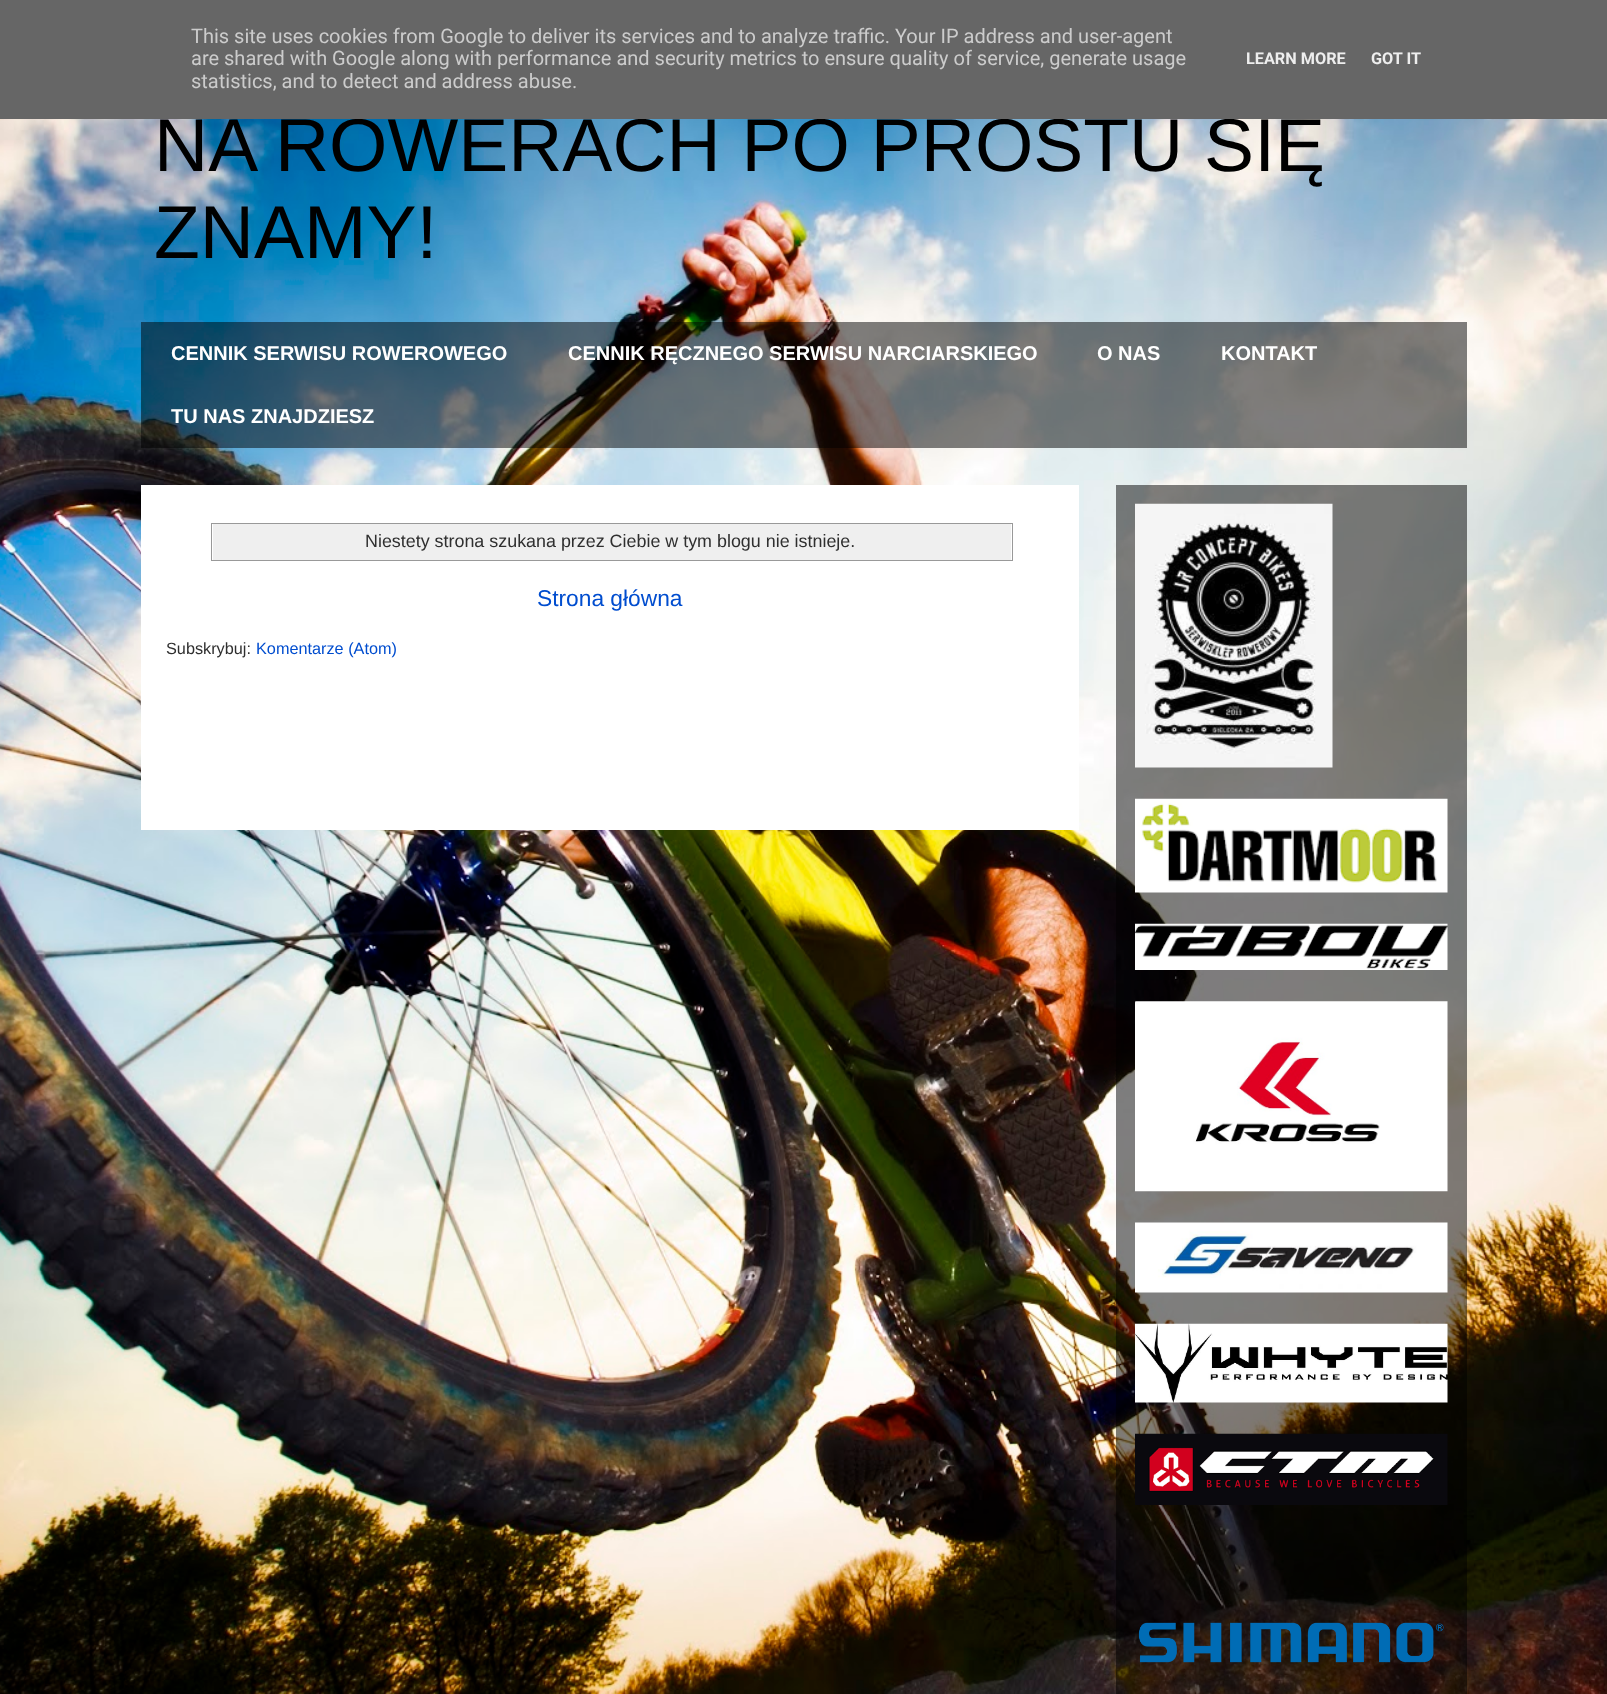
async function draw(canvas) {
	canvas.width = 1607;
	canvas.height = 1694;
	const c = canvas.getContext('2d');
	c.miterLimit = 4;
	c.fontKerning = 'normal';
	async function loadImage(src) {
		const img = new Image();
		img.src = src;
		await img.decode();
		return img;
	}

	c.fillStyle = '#fff';
	c.fillRect(0, 0, 1607, 1694);
	c.drawImage(await loadImage('img1.png'), 0, 119, 1607, 1575);
	c.font = '75px Liberation Sans';
	c.fillStyle = '#000';
	c.fillText('NA ROWERACH PO PROSTU SIĘ', 154, 171);
	c.fillStyle = '#666';
	c.fillRect(0, 0, 1607, 119);
	c.font = '20px Roboto';
	c.fillStyle = '#ccc';
	for (const [text, x, y] of [
		['This site uses cookies from Google to deliver its services and to analyze traffic. Your IP address and user-agent', 191, 43],
		['are shared with Google along with performance and security metrics to ensure quality of service, generate usage', 191, 65],
		['statistics, and to detect and address abuse.', 191, 88],
	]) {
		c.fillText(text, x, y);
	}
	c.font = 'bold 16.25px Roboto';
	c.fillStyle = '#eee';
	c.fillText('LEARN MORE', 1246, 64);
	c.fillText('GOT IT', 1371, 64);
	c.font = '75px Liberation Sans';
	c.fillStyle = '#000';
	c.fillText('ZNAMY!', 154, 258);
	c.fillStyle = '#00000080';
	c.fillRect(141, 322, 1326, 126);
	c.font = 'bold 20px Liberation Sans';
	c.fillStyle = '#fff';
	for (const [text, x, y] of [
		['CENNIK SERWISU ROWEROWEGO', 171, 360],
		['CENNIK RĘCZNEGO SERWISU NARCIARSKIEGO', 568, 360],
		['O NAS', 1097, 360],
		['KONTAKT', 1221, 360],
		['TU NAS ZNAJDZIESZ', 171, 423],
	]) {
		c.fillText(text, x, y);
	}
	c.fillRect(141, 485, 938, 345);
	c.strokeStyle = '#999';
	c.strokeRect(211.5, 523.5, 801, 37);
	c.fillStyle = '#efefef';
	c.fillRect(213, 524, 798, 36);
	c.font = '17.9px Liberation Sans';
	c.fillStyle = '#2f2f2f';
	c.fillText('Niestety strona szukana przez Ciebie w tym blogu nie istnieje.', 365, 547);
	c.font = '22.75px Liberation Sans';
	c.fillStyle = '#004dcf';
	c.fillText('Strona główna', 537, 606);
	c.font = '16.25px Liberation Sans';
	c.fillStyle = '#2f2f2f';
	c.fillText('Subskrybuj:', 166, 654);
	c.fillStyle = '#004dcf';
	c.fillText('Komentarze (Atom)', 256, 654);
	c.fillStyle = '#00000080';
	c.fillRect(1116, 485, 351, 1209);
	c.drawImage(await loadImage('img2.png'), 1135, 503, 198, 265);
	c.drawImage(await loadImage('img3.png'), 1135, 798, 313, 95);
	c.drawImage(await loadImage('img4.png'), 1135, 923, 313, 47);
	c.drawImage(await loadImage('img5.png'), 1135, 1001, 313, 191);
	c.drawImage(await loadImage('img6.png'), 1135, 1222, 313, 71);
	c.drawImage(await loadImage('img7.png'), 1135, 1323, 313, 80);
	c.drawImage(await loadImage('img8.png'), 1135, 1433, 313, 72);
	c.drawImage(await loadImage('img9.png'), 1138, 1622, 306, 41);
}

draw(document.querySelector('canvas'));
